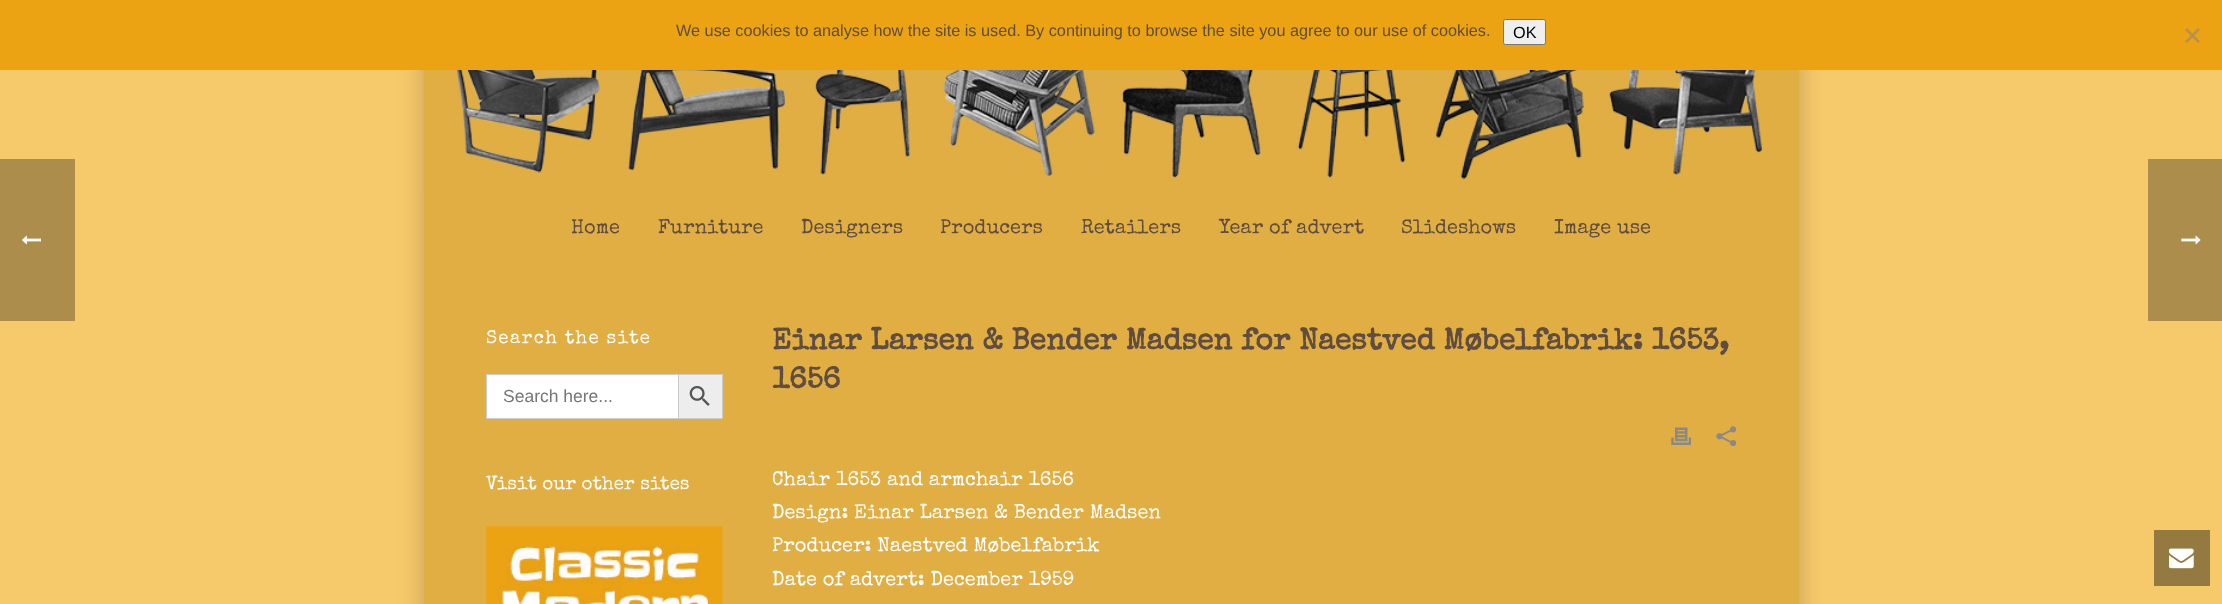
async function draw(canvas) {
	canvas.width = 2222;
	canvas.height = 604;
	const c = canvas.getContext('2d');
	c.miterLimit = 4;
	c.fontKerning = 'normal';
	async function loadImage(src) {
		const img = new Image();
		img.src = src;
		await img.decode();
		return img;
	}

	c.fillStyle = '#f6c96b';
	c.fillRect(0, 0, 2222, 604);
	c.fillStyle = '#00000033';
	c.filter = 'blur(12.5px)';
	c.beginPath();
	c.rect(424, 0, 1375, 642);
	c.fill();
	c.filter = 'none';
	c.fillStyle = '#eba313';
	c.fillRect(0, 0, 2222, 70);
	c.font = '16.25px Liberation Sans';
	c.fillStyle = '#5e4d40';
	c.fillText('We use cookies to analyse how the site is used. By continuing to browse the site you agree to our use of cookies.', 676, 36);
	c.fillStyle = '#efefef';
	c.beginPath();
	c.roundRect(1503.5, 19.5, 42, 25, 2);
	c.fill();
	c.strokeStyle = '#767676';
	c.stroke();
	c.fillStyle = '#000';
	c.fillText('OK', 1513, 38);
	c.fillStyle = '#b6924a';
	c.beginPath();
	c.moveTo(2198, 28);
	c.lineTo(2200, 30);
	c.lineTo(2187, 43);
	c.lineTo(2185, 41.5);
	c.closePath();
	c.fill();
	c.beginPath();
	c.moveTo(2185, 30);
	c.lineTo(2187, 28);
	c.lineTo(2200, 41.5);
	c.lineTo(2198, 43);
	c.closePath();
	c.fill();
	c.fillStyle = '#ac8d4b';
	c.fillRect(0, 159, 75, 162);
	c.drawImage(await loadImage('img1.png'), 22, 235, 19, 10);
	c.fillStyle = '#e1ae44';
	c.fillRect(424, 70, 1375, 534);
	c.drawImage(await loadImage('img2.png'), 423, 70, 1344, 125);
	c.font = '20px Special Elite';
	c.fillStyle = '#5e4d40';
	for (const [text, x, y] of [
		['Home', 571, 233],
		['Furniture', 658, 233],
		['Designers', 801, 233],
		['Producers', 940, 233],
		['Retailers', 1081, 233],
		['Year of advert', 1219, 233],
		['Slideshows', 1401, 233],
		['Image use', 1554, 233],
	]) {
		c.fillText(text, x, y);
	}
	c.letterSpacing = '1.25px';
	c.font = '18.75px Special Elite';
	c.fillStyle = '#fff';
	c.fillText('Search the site', 486, 343);
	for (const [x, y, w, h, color] of [
		[487, 375, 191, 43, '#fff'],
		[486, 374, 192, 1, '#ccc'],
		[486, 418, 192, 1, '#ccc'],
		[486, 374, 1, 45, '#ccc'],
	]) {
		c.fillStyle = color;
		c.fillRect(x, y, w, h);
	}
	c.letterSpacing = '0px';
	c.font = '17.5px Liberation Sans';
	c.fillStyle = '#757575';
	c.fillText('Search here...', 503, 402);
	c.fillStyle = '#ededed';
	c.beginPath();
	c.rect(678.5, 374.5, 44, 44);
	c.fill();
	c.strokeStyle = '#ccc';
	c.stroke();
	c.drawImage(await loadImage('img3.png'), 689, 385, 21, 21);
	c.font = '18.75px Special Elite';
	c.fillStyle = '#fff';
	c.fillText('Visit our other sites', 486, 489);
	c.drawImage(await loadImage('img4.png'), 486, 526, 237, 78);
	c.font = 'bold 30px Special Elite';
	c.fillStyle = '#5e4d40';
	c.fillText('Einar Larsen & Bender Madsen for Naestved Møbelfabrik: 1653,', 772, 349);
	c.fillText('1656', 772, 388);
	c.drawImage(await loadImage('img5.png'), 1671, 427, 20, 18);
	c.drawImage(await loadImage('img6.png'), 1716, 426, 20, 20);
	c.font = '20px Special Elite';
	c.fillStyle = '#fff';
	for (const [text, x, y] of [
		['Chair 1653 and armchair 1656', 772, 485],
		['Design: Einar Larsen & Bender Madsen', 772, 518],
		['Producer: Naestved Møbelfabrik', 772, 551],
		['Date of advert: December 1959', 772, 585],
	]) {
		c.fillText(text, x, y);
	}
	c.fillStyle = '#ac8d4b';
	c.fillRect(2148, 159, 74, 162);
	c.drawImage(await loadImage('img7.png'), 2181, 235, 20, 10);
	c.fillStyle = '#947940';
	c.fillRect(2154, 530, 56, 56);
	c.drawImage(await loadImage('img8.png'), 2169, 548, 25, 21);
}

draw(document.querySelector('canvas'));
